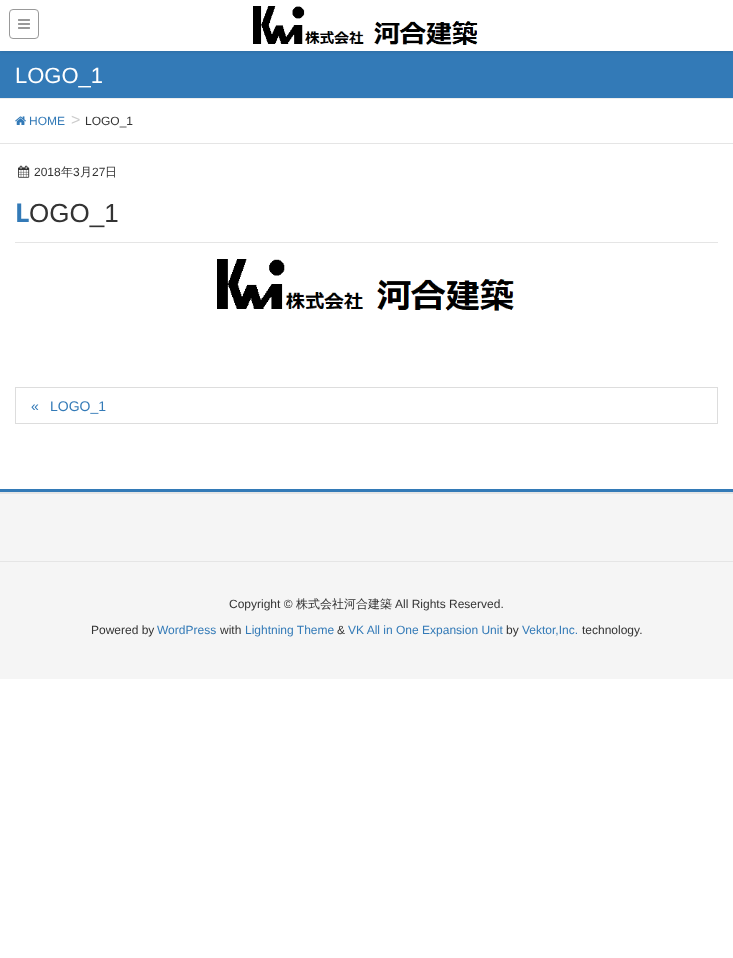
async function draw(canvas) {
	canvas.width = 733;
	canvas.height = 958;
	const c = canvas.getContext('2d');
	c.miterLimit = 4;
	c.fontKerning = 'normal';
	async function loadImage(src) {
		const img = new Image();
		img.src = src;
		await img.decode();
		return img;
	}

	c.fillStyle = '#fff';
	c.fillRect(0, 0, 733, 958);
	c.fillStyle = '#337ab7';
	c.fillRect(0, 51, 733, 47);
	c.fillStyle = '#0000001a';
	c.filter = 'blur(1.5px)';
	c.beginPath();
	c.rect(0, 1, 733, 51);
	c.fill();
	c.filter = 'none';
	c.fillStyle = '#fff';
	c.fillRect(0, 0, 733, 51);
	c.beginPath();
	c.roundRect(9.5, 9.5, 29, 29, 3.5);
	c.strokeStyle = '#999';
	c.stroke();
	c.drawImage(await loadImage('img1.png'), 18, 19, 12, 10);
	c.drawImage(await loadImage('img2.png'), 253, 6, 225, 39);
	c.fillStyle = '#eee';
	c.fillRect(0, 98, 733, 1);
	c.font = '22px Liberation Sans';
	c.fillStyle = '#fff';
	c.fillText('LOGO_1', 15, 83);
	c.fillStyle = '#e5e5e5';
	c.fillRect(0, 143, 733, 1);
	c.drawImage(await loadImage('img3.png'), 15, 116, 11, 9);
	c.font = '12px Liberation Sans';
	c.fillStyle = '#337ab7';
	c.fillText('HOME', 29, 125);
	c.font = '16px Liberation Sans';
	c.fillStyle = '#ccc';
	c.fillText('>', 71, 125);
	c.font = '12px Liberation Sans';
	c.fillStyle = '#333';
	c.fillText('LOGO_1', 85, 125);
	c.fillStyle = '#e5e5e5';
	c.fillRect(15, 242, 703, 1);
	c.drawImage(await loadImage('img4.png'), 18, 165, 12, 13);
	c.fillStyle = '#333';
	c.fillText('2018', 34, 176);
	c.font = '500 12px WenQuanYi Zen Hei';
	c.fillText('年', 61, 176);
	c.font = '12px Liberation Sans';
	c.fillText('3', 73, 176);
	c.font = '500 12px WenQuanYi Zen Hei';
	c.fillText('月', 80, 176);
	c.font = '12px Liberation Sans';
	c.fillText('27', 92, 176);
	c.font = '500 12px WenQuanYi Zen Hei';
	c.fillText('日', 105, 176);
	c.font = 'bold 26px Noto Sans';
	c.fillStyle = '#337ab7';
	c.fillText('L', 15, 222);
	c.font = '26px Liberation Sans';
	c.fillStyle = '#333';
	c.fillText('OGO_1', 29, 222);
	c.drawImage(await loadImage('img5.png'), 217, 259, 297, 52);
	c.strokeStyle = '#ddd';
	c.strokeRect(15.5, 387.5, 702, 36);
	c.font = '14px Liberation Sans';
	c.fillStyle = '#337ab7';
	c.fillText('«', 31, 411);
	c.fillText('LOGO_1', 50, 411);
	for (const [x, y, w, h, color] of [
		[0, 494, 733, 185, '#f5f5f5'],
		[0, 489, 733, 3, '#337ab7'],
		[0, 492, 733, 2, '#e5e5e5'],
		[0, 561, 733, 1, '#e5e5e5'],
	]) {
		c.fillStyle = color;
		c.fillRect(x, y, w, h);
	}
	c.font = '12px Liberation Sans';
	c.fillStyle = '#333';
	c.fillText('Copyright ©', 229, 608);
	c.font = '500 12px WenQuanYi Zen Hei';
	c.fillText('株式会社河合建築', 296, 608);
	c.font = '12px Liberation Sans';
	c.fillText('All Rights Reserved.', 395, 608);
	c.fillText('Powered by', 91, 634);
	c.fillStyle = '#337ab7';
	c.fillText('WordPress', 157, 634);
	c.fillStyle = '#333';
	c.fillText('with', 220, 634);
	c.fillStyle = '#337ab7';
	c.fillText('Lightning Theme', 245, 634);
	c.fillStyle = '#333';
	c.fillText('&', 337, 634);
	c.fillStyle = '#337ab7';
	c.fillText('VK All in One Expansion Unit', 348, 634);
	c.fillStyle = '#333';
	c.fillText('by', 506, 634);
	c.fillStyle = '#337ab7';
	c.fillText('Vektor,Inc.', 522, 634);
	c.fillStyle = '#333';
	c.fillText('technology.', 582, 634);
}

draw(document.querySelector('canvas'));
